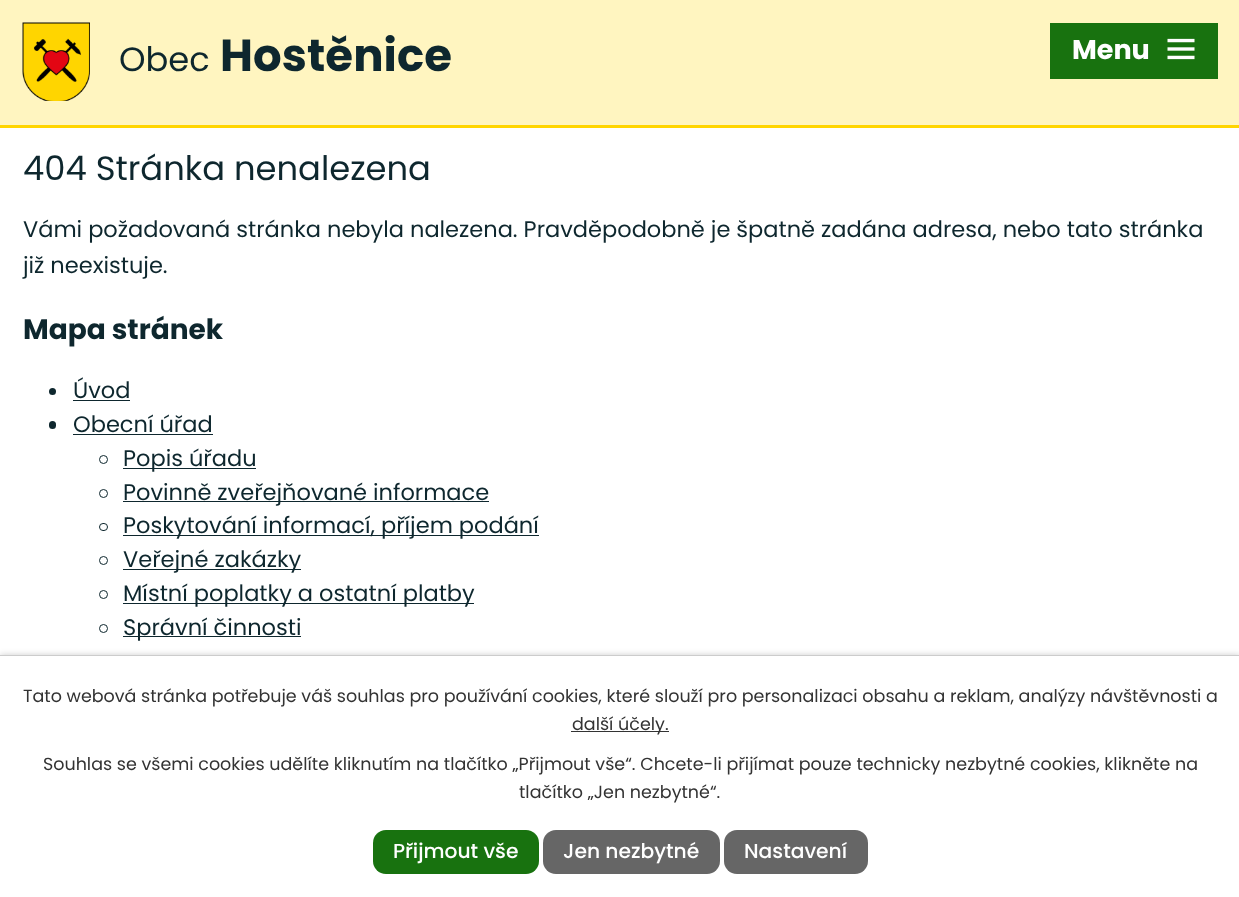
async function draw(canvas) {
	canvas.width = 1239;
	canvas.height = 897;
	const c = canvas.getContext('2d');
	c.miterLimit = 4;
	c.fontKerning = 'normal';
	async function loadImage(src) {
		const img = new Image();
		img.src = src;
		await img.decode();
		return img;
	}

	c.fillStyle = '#fff';
	c.fillRect(0, 0, 1239, 897);
	c.fillStyle = '#fff5c0';
	c.fillRect(0, 0, 1239, 125);
	c.fillStyle = '#ffd500';
	c.fillRect(0, 125, 1239, 3);
	c.drawImage(await loadImage('img1.png'), 22, 22, 68, 79);
	c.font = '33.75px Poppins';
	c.fillStyle = '#0e272e';
	c.fillText('Obec', 119, 71);
	c.letterSpacing = '0.1px';
	c.font = 'bold 45px Poppins';
	c.fillText('Hostěnice', 220, 71);
	c.fillStyle = '#18720f';
	c.fillRect(1050, 23, 168, 56);
	c.letterSpacing = '0px';
	c.font = 'bold 27px Poppins';
	c.fillStyle = '#fff';
	c.fillText('Menu', 1072, 59);
	c.drawImage(await loadImage('img2.png'), 1167, 38, 28, 22);
	c.font = '33.75px Poppins';
	c.fillStyle = '#0e272e';
	c.fillText('404 Stránka nenalezena', 23, 180);
	c.font = '22.5px Poppins';
	c.fillText('Vámi požadovaná stránka nebyla nalezena. Pravděpodobně je špatně zadána adresa, nebo tato stránka', 23, 237);
	c.fillText('již neexistuje.', 23, 273);
	c.font = 'bold 28px Poppins';
	c.fillText('Mapa stránek', 23, 339);
	c.beginPath();
	c.arc(52.5, 391.5, 3.5, 0, 2 * Math.PI);
	c.fill();
	c.font = '22.5px Poppins';
	c.fillText('Úvod', 73, 398);
	c.fillRect(73, 400, 57, 1);
	c.beginPath();
	c.roundRect(49, 421, 7, 8, 3.5);
	c.fill();
	c.fillText('Obecní úřad', 73, 432);
	c.fillRect(73, 434, 140, 1);
	c.beginPath();
	c.arc(103.5, 459.5, 4, 0, 2 * Math.PI);
	c.strokeStyle = '#0e272e';
	c.stroke();
	c.fillRect(123, 468, 133, 1);
	c.fillText('Popis úřadu', 123, 466);
	c.beginPath();
	c.arc(103.5, 493.5, 4, 0, 2 * Math.PI);
	c.stroke();
	c.fillRect(123, 501, 366, 1);
	c.fillText('Povinně zveřejňované informace', 123, 500);
	c.beginPath();
	c.roundRect(99.5, 523.5, 8, 7, 3.5);
	c.stroke();
	c.fillRect(123, 535, 416, 1);
	c.fillText('Poskytování informací, příjem podání', 123, 533);
	c.beginPath();
	c.arc(103.5, 560.5, 4, 0, 2 * Math.PI);
	c.stroke();
	c.fillRect(123, 569, 178, 1);
	c.fillText('Veřejné zakázky', 123, 567);
	c.beginPath();
	c.arc(103.5, 594.5, 4, 0, 2 * Math.PI);
	c.stroke();
	c.fillRect(123, 603, 351, 1);
	c.fillText('Místní poplatky a ostatní platby', 123, 601);
	c.beginPath();
	c.arc(103.5, 628.5, 4, 0, 2 * Math.PI);
	c.stroke();
	c.fillRect(123, 636, 178, 1);
	c.fillText('Správní činnosti', 123, 635);
	c.fillStyle = '#00000033';
	c.filter = 'blur(3px)';
	c.beginPath();
	c.rect(0, 655, 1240, 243);
	c.fill();
	c.filter = 'none';
	c.fillStyle = '#fff';
	c.fillRect(0, 656, 1239, 241);
	c.fillStyle = '#ccc';
	c.fillRect(0, 655, 1239, 1);
	c.font = '17.5px Poppins';
	c.fillStyle = '#333';
	c.fillText('Tato webová stránka potřebuje váš souhlas pro používání cookies, které slouží pro personalizaci obsahu a reklam, analýzy návštěvnosti a', 23, 702);
	c.fillRect(571, 731, 98, 1);
	for (const [text, x, y] of [
		['další účely.', 572, 730],
		['Souhlas se všemi cookies udělíte kliknutím na tlačítko „Přijmout vše“. Chcete-li přijímat pouze technicky nezbytné cookies, klikněte na', 43, 770],
		['tlačítko „Jen nezbytné“.', 519, 798],
	]) {
		c.fillText(text, x, y);
	}
	c.fillStyle = '#18720f';
	c.beginPath();
	c.roundRect(373, 830, 166, 44, 13);
	c.fill();
	c.font = '500 20.25px Poppins';
	c.fillStyle = '#fff';
	c.fillText('Přijmout vše', 393, 858);
	c.fillStyle = '#666';
	c.beginPath();
	c.roundRect(543, 830, 177, 44, 13);
	c.fill();
	c.fillStyle = '#fff';
	c.fillText('Jen nezbytné', 563, 858);
	c.fillStyle = '#666';
	c.beginPath();
	c.roundRect(724, 830, 144, 44, 13);
	c.fill();
	c.fillStyle = '#fff';
	c.fillText('Nastavení', 744, 858);
}

draw(document.querySelector('canvas'));
